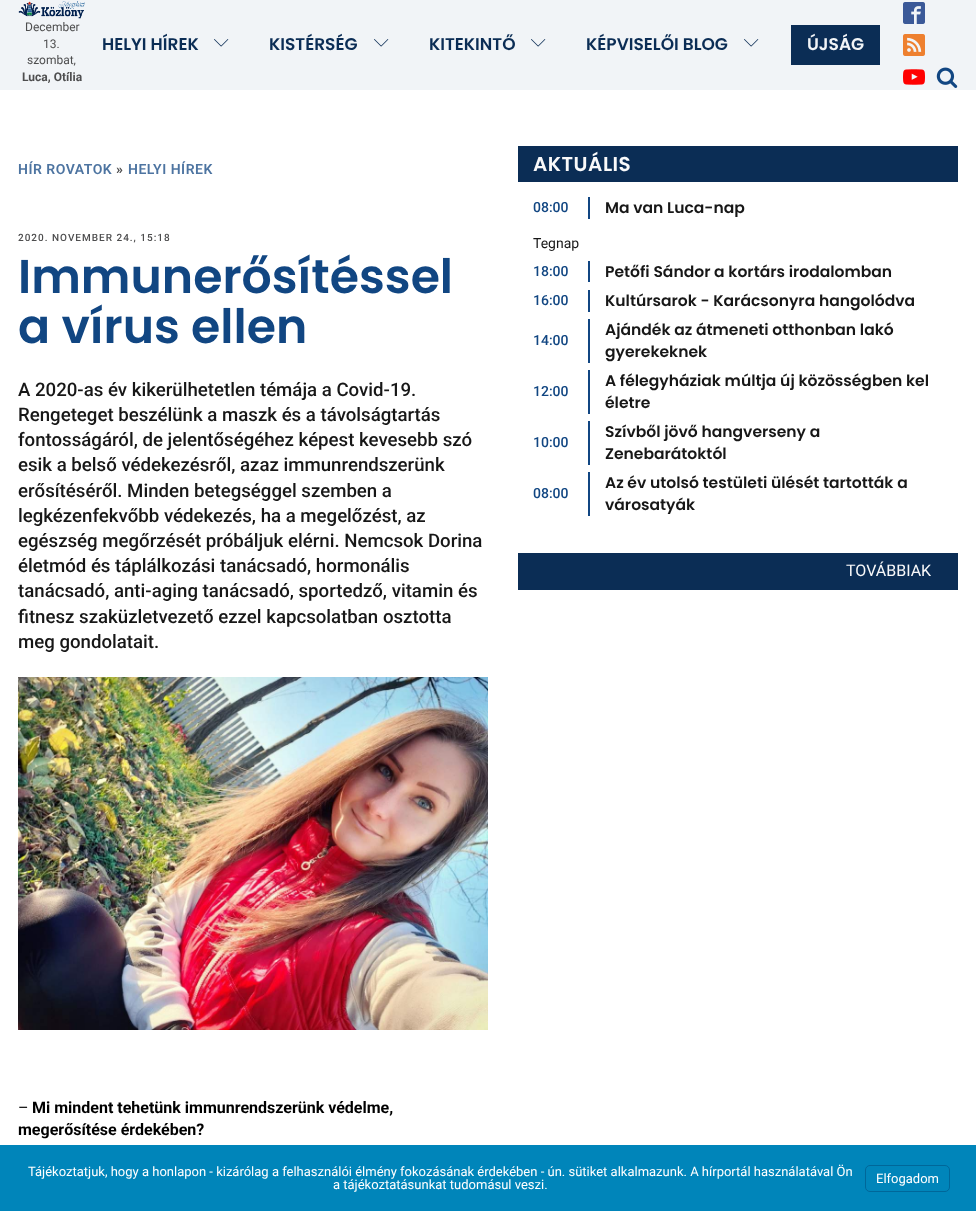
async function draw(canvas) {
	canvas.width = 976;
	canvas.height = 1211;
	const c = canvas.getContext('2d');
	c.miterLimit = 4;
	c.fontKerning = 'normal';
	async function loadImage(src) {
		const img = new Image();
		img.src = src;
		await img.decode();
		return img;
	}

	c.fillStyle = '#fff';
	c.fillRect(0, 0, 976, 1211);
	c.fillStyle = '#f1f4f7';
	c.fillRect(0, 0, 976, 90);
	c.drawImage(await loadImage('img1.png'), 18, 1, 67, 18);
	c.font = '12px Roboto';
	c.fillStyle = '#4e4e4f';
	for (const [text, x, y] of [
		['December', 25, 31],
		['13.', 43, 48],
		['szombat,', 27, 64],
	]) {
		c.fillText(text, x, y);
	}
	c.font = 'bold 12px Roboto';
	c.fillText('Luca, Otília', 22, 81);
	c.font = '600 17px Poppins';
	c.fillStyle = '#0b2d55';
	c.fillText('HELYI HÍREK', 102, 50);
	c.drawImage(await loadImage('img2.png'), 214, 39, 15, 8);
	c.fillText('KISTÉRSÉG', 269, 50);
	c.drawImage(await loadImage('img2.png'), 374, 39, 15, 8);
	c.fillText('KITEKINTŐ', 429, 50);
	c.drawImage(await loadImage('img2.png'), 531, 39, 15, 8);
	c.fillText('KÉPVISELŐI BLOG', 586, 50);
	c.drawImage(await loadImage('img2.png'), 744, 39, 15, 8);
	c.fillRect(791, 25, 89, 40);
	c.fillStyle = '#f1f4f7';
	c.fillText('ÚJSÁG', 807, 50);
	c.drawImage(await loadImage('img3.png'), 903, 2, 22, 22);
	c.drawImage(await loadImage('img4.png'), 903, 34, 22, 22);
	c.drawImage(await loadImage('img5.png'), 903, 69, 22, 16);
	c.drawImage(await loadImage('img6.png'), 936, 67, 22, 21);
	c.letterSpacing = '0.5px';
	c.font = '600 14px Roboto';
	c.fillStyle = '#4d74a1';
	c.fillText('HÍR ROVATOK', 18, 174);
	c.fillStyle = '#4e4e4f';
	c.fillText('»', 116, 174);
	c.fillStyle = '#4d74a1';
	c.fillText('HELYI HÍREK', 128, 174);
	c.letterSpacing = '1px';
	c.font = '500 10px Roboto';
	c.fillStyle = '#4e4e4f';
	c.fillText('2020. NOVEMBER 24., 15:18', 18, 241);
	c.letterSpacing = '0px';
	c.font = '600 47.4px Poppins';
	c.fillStyle = '#114682';
	c.fillText('Immunerősítéssel', 18, 293);
	c.fillText('a vírus ellen', 18, 343);
	c.font = '500 18.65px Roboto';
	c.fillStyle = '#171717';
	for (const [text, x, y] of [
		['A 2020-as év kikerülhetetlen témája a Covid-19.', 18, 396],
		['Rengeteget beszélünk a maszk és a távolságtartás', 18, 421],
		['fontosságáról, de jelentőségéhez képest kevesebb szó', 18, 446],
		['esik a belső védekezésről, azaz immunrendszerünk', 18, 471],
		['erősítéséről. Minden betegséggel szemben a', 18, 497],
		['legkézenfekvőbb védekezés, ha a megelőzést, az', 18, 522],
		['egészség megőrzését próbáljuk elérni. Nemcsok Dorina', 18, 547],
		['életmód és táplálkozási tanácsadó, hormonális', 18, 572],
		['tanácsadó, anti-aging tanácsadó, sportedző, vitamin és', 18, 597],
		['fitnesz szaküzletvezető ezzel kapcsolatban osztotta', 18, 623],
		['meg gondolatait.', 18, 648],
	]) {
		c.fillText(text, x, y);
	}
	c.drawImage(await loadImage('img7.png'), 18, 677, 470, 353);
	c.font = '16px Roboto';
	c.fillStyle = '#000';
	c.fillText('–', 18, 1113);
	c.font = 'bold 16px Roboto';
	c.fillText('Mi mindent tehetünk immunrendszerünk védelme,', 32, 1113);
	c.fillText('megerősítése érdekében?', 18, 1135);
	c.fillStyle = '#0b2d55';
	c.fillRect(518, 146, 440, 36);
	c.letterSpacing = '0.5px';
	c.font = '600 20px Poppins';
	c.fillStyle = '#f9f9fa';
	c.fillText('AKTUÁLIS', 533, 171);
	c.letterSpacing = '0px';
	c.font = '500 14px Roboto';
	c.fillStyle = '#114682';
	c.fillText('08:00', 533, 212);
	c.fillRect(588, 197, 2, 22);
	c.font = '600 15.55px Poppins';
	c.fillStyle = '#171717';
	c.fillText('Ma van Luca-nap', 605, 213);
	c.font = '14px Roboto';
	c.fillText('Tegnap', 533, 248);
	c.font = '500 14px Roboto';
	c.fillStyle = '#114682';
	c.fillText('18:00', 533, 276);
	c.fillRect(588, 261, 2, 21);
	c.font = '600 15.55px Poppins';
	c.fillStyle = '#171717';
	c.fillText('Petőfi Sándor a kortárs irodalomban', 605, 277);
	c.font = '500 14px Roboto';
	c.fillStyle = '#114682';
	c.fillText('16:00', 533, 305);
	c.fillRect(588, 290, 2, 22);
	c.font = '600 15.55px Poppins';
	c.fillStyle = '#171717';
	c.fillText('Kultúrsarok - Karácsonyra hangolódva', 605, 306);
	c.font = '500 14px Roboto';
	c.fillStyle = '#114682';
	c.fillText('14:00', 533, 345);
	c.fillRect(588, 319, 2, 44);
	c.font = '600 15.55px Poppins';
	c.fillStyle = '#171717';
	c.fillText('Ajándék az átmeneti otthonban lakó', 605, 335);
	c.fillText('gyerekeknek', 605, 357);
	c.font = '500 14px Roboto';
	c.fillStyle = '#114682';
	c.fillText('12:00', 533, 396);
	c.fillRect(588, 370, 2, 44);
	c.font = '600 15.55px Poppins';
	c.fillStyle = '#171717';
	c.fillText('A félegyháziak múltja új közösségben kel', 605, 386);
	c.fillText('életre', 605, 408);
	c.font = '500 14px Roboto';
	c.fillStyle = '#114682';
	c.fillText('10:00', 533, 447);
	c.fillRect(588, 421, 2, 44);
	c.font = '600 15.55px Poppins';
	c.fillStyle = '#171717';
	c.fillText('Szívből jövő hangverseny a', 605, 437);
	c.fillText('Zenebarátoktól', 605, 459);
	c.font = '500 14px Roboto';
	c.fillStyle = '#114682';
	c.fillText('08:00', 533, 498);
	c.fillRect(588, 472, 2, 44);
	c.font = '600 15.55px Poppins';
	c.fillStyle = '#171717';
	c.fillText('Az év utolsó testületi ülését tartották a', 605, 488);
	c.fillText('városatyák', 605, 510);
	c.fillStyle = '#0b2d55';
	c.fillRect(518, 553, 440, 37);
	c.font = '16px Roboto';
	c.fillStyle = '#f9f9fa';
	c.fillText('TOVÁBBIAK', 846, 576);
	c.fillStyle = '#0085ba';
	c.fillRect(0, 1145, 976, 66);
	c.font = '13px Roboto';
	c.fillStyle = '#fff';
	c.fillText('Tájékoztatjuk, hogy a honlapon - kizárólag a felhasználói élmény fokozásának érdekében - ún. sütiket alkalmazunk. A hírportál használatával Ön', 28, 1176);
	c.fillText('a tájékoztatásunkat tudomásul veszi.', 333, 1189);
	c.beginPath();
	c.roundRect(865.5, 1165.5, 84, 26, 4.5);
	c.strokeStyle = '#006799';
	c.stroke();
	c.fillText('Elfogadom', 876, 1183);
}

draw(document.querySelector('canvas'));
